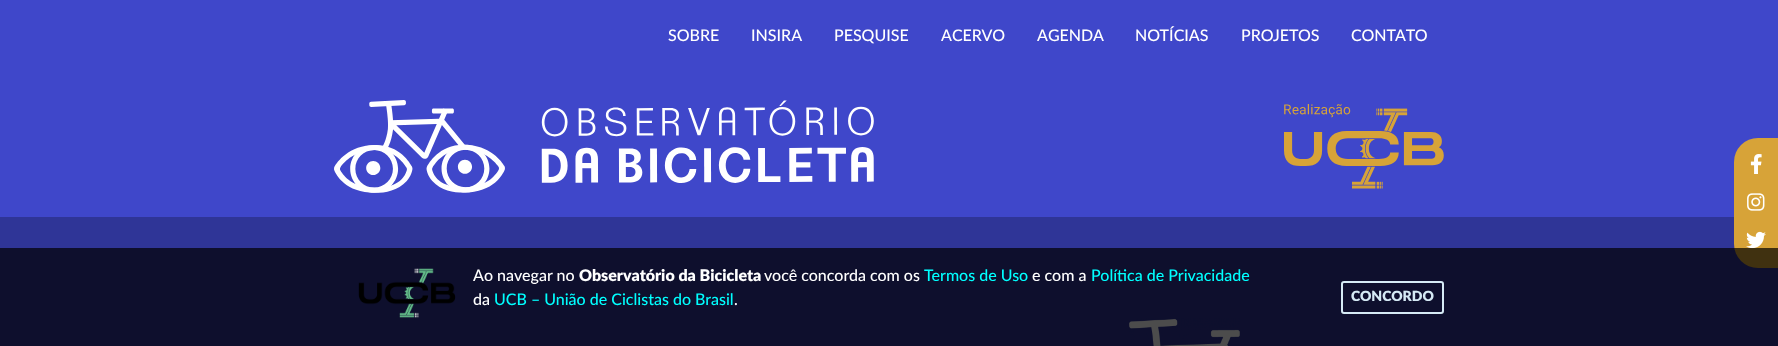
async function draw(canvas) {
	canvas.width = 1778;
	canvas.height = 346;
	const c = canvas.getContext('2d');
	c.miterLimit = 4;
	c.fontKerning = 'normal';
	async function loadImage(src) {
		const img = new Image();
		img.src = src;
		await img.decode();
		return img;
	}

	c.fillStyle = '#3f47ca';
	c.fillRect(0, 0, 1778, 346);
	c.font = '500 16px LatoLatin';
	c.fillStyle = '#fff';
	for (const [text, x, y] of [
		['SOBRE', 668, 41],
		['INSIRA', 751, 41],
		['PESQUISE', 834, 41],
		['ACERVO', 941, 41],
		['AGENDA', 1037, 41],
		['NOTÍCIAS', 1135, 41],
		['PROJETOS', 1241, 41],
		['CONTATO', 1351, 41],
	]) {
		c.fillText(text, x, y);
	}
	c.drawImage(await loadImage('img1.png'), 334, 100, 540, 93);
	c.drawImage(await loadImage('img2.png'), 1284, 104, 160, 85);
	c.fillStyle = '#2f3597';
	c.fillRect(0, 217, 1778, 129);
	c.fillStyle = '#d7a338';
	c.beginPath();
	c.roundRect(1734, 138, 44, 130, [24, 0, 0, 24]);
	c.fill();
	c.drawImage(await loadImage('img3.png'), 1750, 154, 12, 20);
	c.drawImage(await loadImage('img4.png'), 1747, 193, 18, 18);
	c.drawImage(await loadImage('img5.png'), 1746, 231, 20, 18);
	c.drawImage(await loadImage('img6.png'), 1129, 318, 111, 28);
	c.fillStyle = '#000000b3';
	c.fillRect(0, 248, 1778, 98);
	c.drawImage(await loadImage('img7.png'), 358, 268, 98, 50);
	c.fillStyle = '#fff';
	c.fillText('Ao navegar no', 473, 281);
	c.font = '900 16px LatoLatin';
	c.fillText('Observatório da Bicicleta', 579, 281);
	c.font = '500 16px LatoLatin';
	c.fillText('você concorda com os', 764, 281);
	c.fillStyle = '#0ff';
	c.fillText('Termos de Uso', 924, 281);
	c.fillStyle = '#fff';
	c.fillText('e com a', 1032, 281);
	c.fillStyle = '#0ff';
	c.fillText('Política de Privacidade', 1091, 281);
	c.fillStyle = '#fff';
	c.fillText('da', 473, 305);
	c.fillStyle = '#0ff';
	c.fillText('UCB – União de Ciclistas do Brasil', 494, 305);
	c.fillStyle = '#fff';
	c.fillText('.', 734, 305);
	c.beginPath();
	c.roundRect(1342, 282, 101, 31, 2);
	c.strokeStyle = '#d5eaf5';
	c.lineWidth = 2;
	c.stroke();
	c.font = '900 14px LatoLatin';
	c.fillStyle = '#d5eaf5';
	c.fillText('CONCORDO', 1351, 301);
}

draw(document.querySelector('canvas'));
